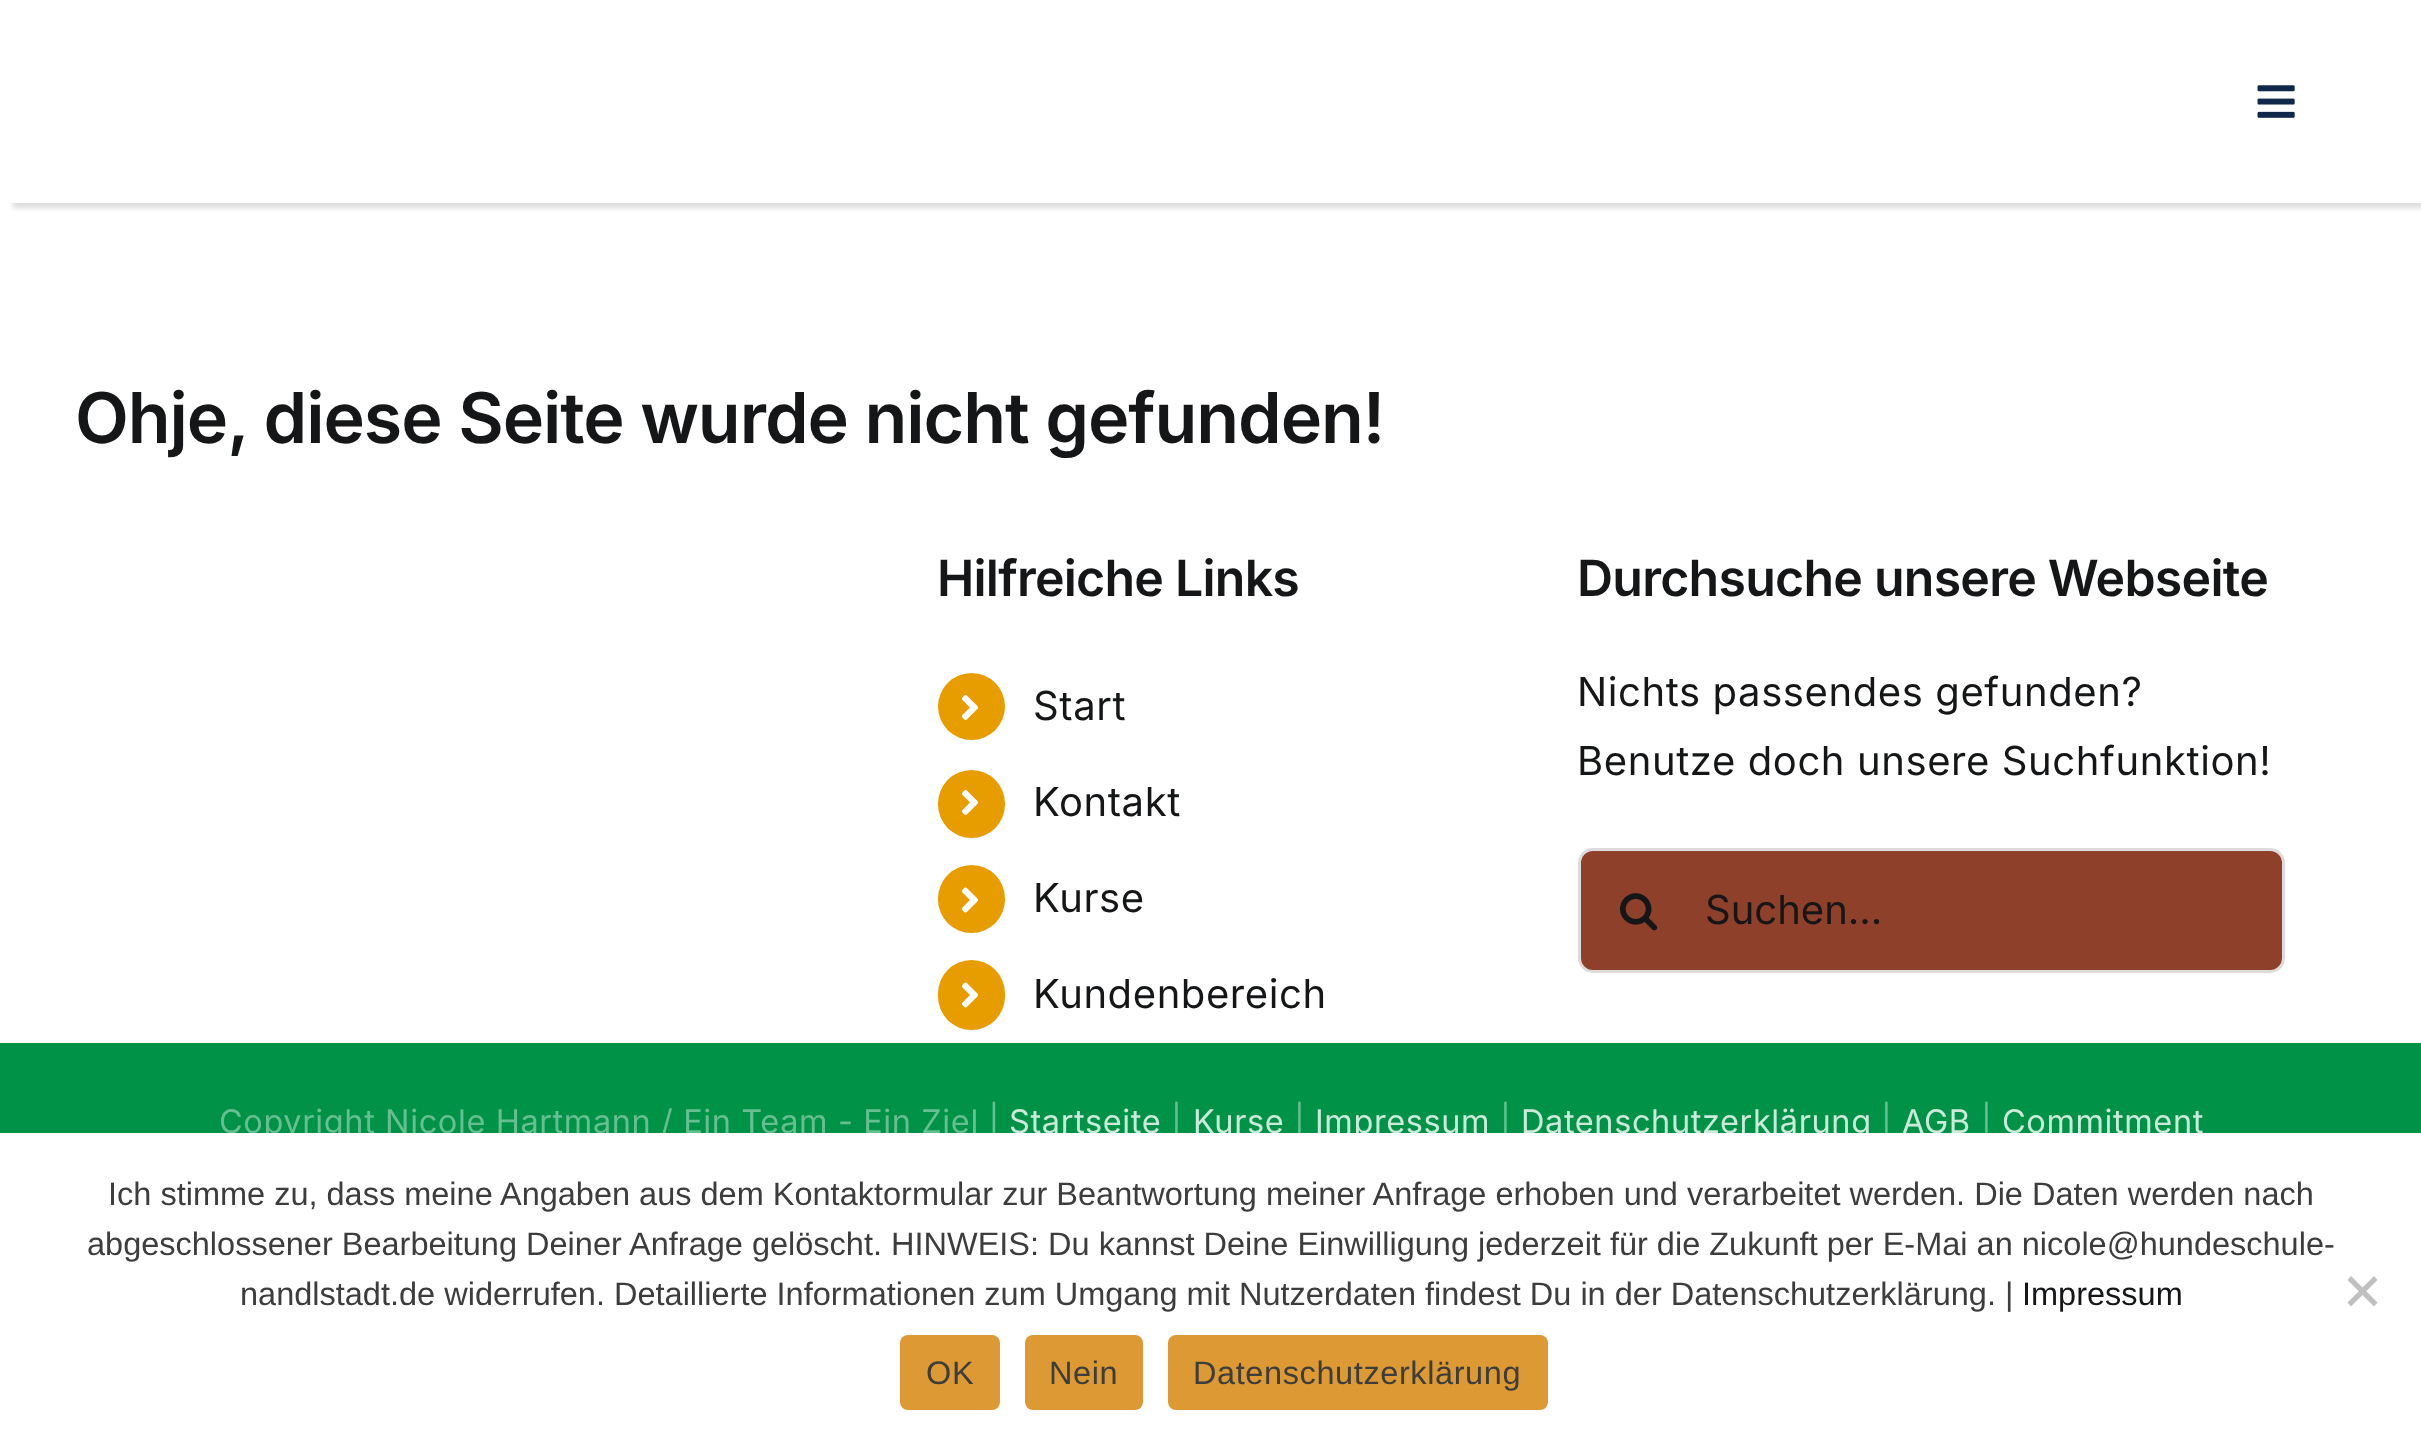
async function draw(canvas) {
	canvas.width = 2421;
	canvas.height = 1447;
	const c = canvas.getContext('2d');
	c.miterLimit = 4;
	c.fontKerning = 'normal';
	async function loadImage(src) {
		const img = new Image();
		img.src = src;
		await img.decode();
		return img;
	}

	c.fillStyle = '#fff';
	c.fillRect(0, 0, 2421, 1447);
	c.fillStyle = '#dddbdb';
	c.filter = 'blur(2.5px)';
	c.beginPath();
	c.rect(13, 5, 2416, 203);
	c.fill();
	c.filter = 'none';
	c.fillStyle = '#fff';
	c.fillRect(9, 1, 2412, 202);
	c.drawImage(await loadImage('img1.png'), 2257, 85, 38, 33);
	c.letterSpacing = '-1.05px';
	c.font = '600 70px Inter';
	c.fillStyle = '#141617';
	c.fillText('Ohje, diese Seite wurde nicht gefunden!', 75, 443);
	c.letterSpacing = '-0.75px';
	c.font = '600 50px Inter';
	c.fillText('Hilfreiche Links', 937, 596);
	c.fillStyle = '#e79c00';
	c.beginPath();
	c.arc(971.5, 706.5, 33.5, 0, 2 * Math.PI);
	c.fill();
	c.drawImage(await loadImage('img2.png'), 962, 695, 16, 25);
	c.letterSpacing = '0.6px';
	c.font = '40px Inter';
	c.fillStyle = '#141617';
	c.fillText('Start', 1033, 720);
	c.fillStyle = '#e79c00';
	c.beginPath();
	c.roundRect(938, 770, 67, 68, 33.5);
	c.fill();
	c.drawImage(await loadImage('img2.png'), 962, 790, 16, 25);
	c.fillStyle = '#141617';
	c.fillText('Kontakt', 1033, 816);
	c.fillStyle = '#e79c00';
	c.beginPath();
	c.roundRect(938, 865, 67, 68, 33.5);
	c.fill();
	c.drawImage(await loadImage('img3.png'), 962, 887, 16, 26);
	c.fillStyle = '#141617';
	c.fillText('Kurse', 1033, 912);
	c.fillStyle = '#e79c00';
	c.beginPath();
	c.roundRect(938, 960, 67, 70, 33.5);
	c.fill();
	c.drawImage(await loadImage('img3.png'), 962, 982, 16, 26);
	c.fillStyle = '#141617';
	c.fillText('Kundenbereich', 1033, 1008);
	c.letterSpacing = '-0.75px';
	c.font = '600 50px Inter';
	c.fillText('Durchsuche unsere Webseite', 1577, 596);
	c.letterSpacing = '0.6px';
	c.font = '40px Inter';
	c.fillText('Nichts passendes gefunden?', 1577, 706);
	c.fillText('Benutze doch unsere Suchfunktion!', 1577, 775);
	c.fillStyle = '#8e402a';
	c.beginPath();
	c.roundRect(1579.5, 849.5, 704, 122, 13.5);
	c.fill();
	c.strokeStyle = '#dddbdb';
	c.lineWidth = 3;
	c.stroke();
	c.drawImage(await loadImage('img4.png'), 1620, 893, 38, 38);
	c.letterSpacing = '0px';
	c.fillStyle = '#141617';
	c.fillText('Suchen...', 1705, 924);
	c.fillStyle = '#009247';
	c.fillRect(0, 1043, 2421, 90);
	c.letterSpacing = '0.6px';
	c.font = '32.5px Inter';
	c.fillStyle = '#66be91';
	c.fillText('Copyright Nicole Hartmann / Ein Team - Ein Ziel |', 219, 1133);
	c.fillStyle = '#cce9da';
	c.fillText('Startseite', 1009, 1133);
	c.fillStyle = '#66be91';
	c.fillText('|', 1171, 1133);
	c.fillStyle = '#cce9da';
	c.fillText('Kurse', 1193, 1133);
	c.fillStyle = '#66be91';
	c.fillText('|', 1294, 1133);
	c.fillStyle = '#cce9da';
	c.fillText('Impressum', 1315, 1133);
	c.fillStyle = '#66be91';
	c.fillText('|', 1500, 1133);
	c.fillStyle = '#cce9da';
	c.fillText('Datenschutzerklärung', 1521, 1133);
	c.fillStyle = '#66be91';
	c.fillText('|', 1881, 1133);
	c.fillStyle = '#cce9da';
	c.fillText('AGB', 1902, 1133);
	c.fillStyle = '#66be91';
	c.fillText('|', 1981, 1133);
	c.fillStyle = '#cce9da';
	c.fillText('Commitment', 2002, 1133);
	c.fillStyle = '#fff';
	c.fillRect(228, 1133, 1974, 8);
	c.letterSpacing = '0px';
	c.font = '32.5px Liberation Sans';
	c.fillStyle = '#3d3d3d';
	for (const [text, x, y] of [
		['Ich stimme zu, dass meine Angaben aus dem Kontaktormular zur Beantwortung meiner Anfrage erhoben und verarbeitet werden. Die Daten werden nach', 108, 1205],
		['abgeschlossener Bearbeitung Deiner Anfrage gelöscht. HINWEIS: Du kannst Deine Einwilligung jederzeit für die Zukunft per E-Mai an nicole@hundeschule-', 87, 1255],
		['nandlstadt.de widerrufen. Detaillierte Informationen zum Umgang mit Nutzerdaten findest Du in der Datenschutzerklärung. |', 240, 1305],
	]) {
		c.fillText(text, x, y);
	}
	c.fillStyle = '#141617';
	c.fillText('Impressum', 2022, 1305);
	c.fillStyle = '#c0c0c0';
	c.beginPath();
	c.moveTo(2374, 1276);
	c.lineTo(2377.5, 1280);
	c.lineTo(2351, 1306.5);
	c.lineTo(2347.5, 1302.5);
	c.closePath();
	c.fill();
	c.beginPath();
	c.moveTo(2347.5, 1280);
	c.lineTo(2351, 1276);
	c.lineTo(2377.5, 1302.5);
	c.lineTo(2374, 1306.5);
	c.closePath();
	c.fill();
	c.fillStyle = '#d93';
	c.beginPath();
	c.roundRect(900, 1335, 100, 75, 8);
	c.fill();
	c.letterSpacing = '0.6px';
	c.fillStyle = '#3d3d3d';
	c.fillText('OK', 926, 1384);
	c.fillStyle = '#d93';
	c.beginPath();
	c.roundRect(1025, 1335, 118, 75, 8);
	c.fill();
	c.fillStyle = '#3d3d3d';
	c.fillText('Nein', 1049, 1384);
	c.fillStyle = '#d93';
	c.beginPath();
	c.roundRect(1168, 1335, 380, 75, 8);
	c.fill();
	c.fillStyle = '#3d3d3d';
	c.fillText('Datenschutzerklärung', 1193, 1384);
}

draw(document.querySelector('canvas'));
